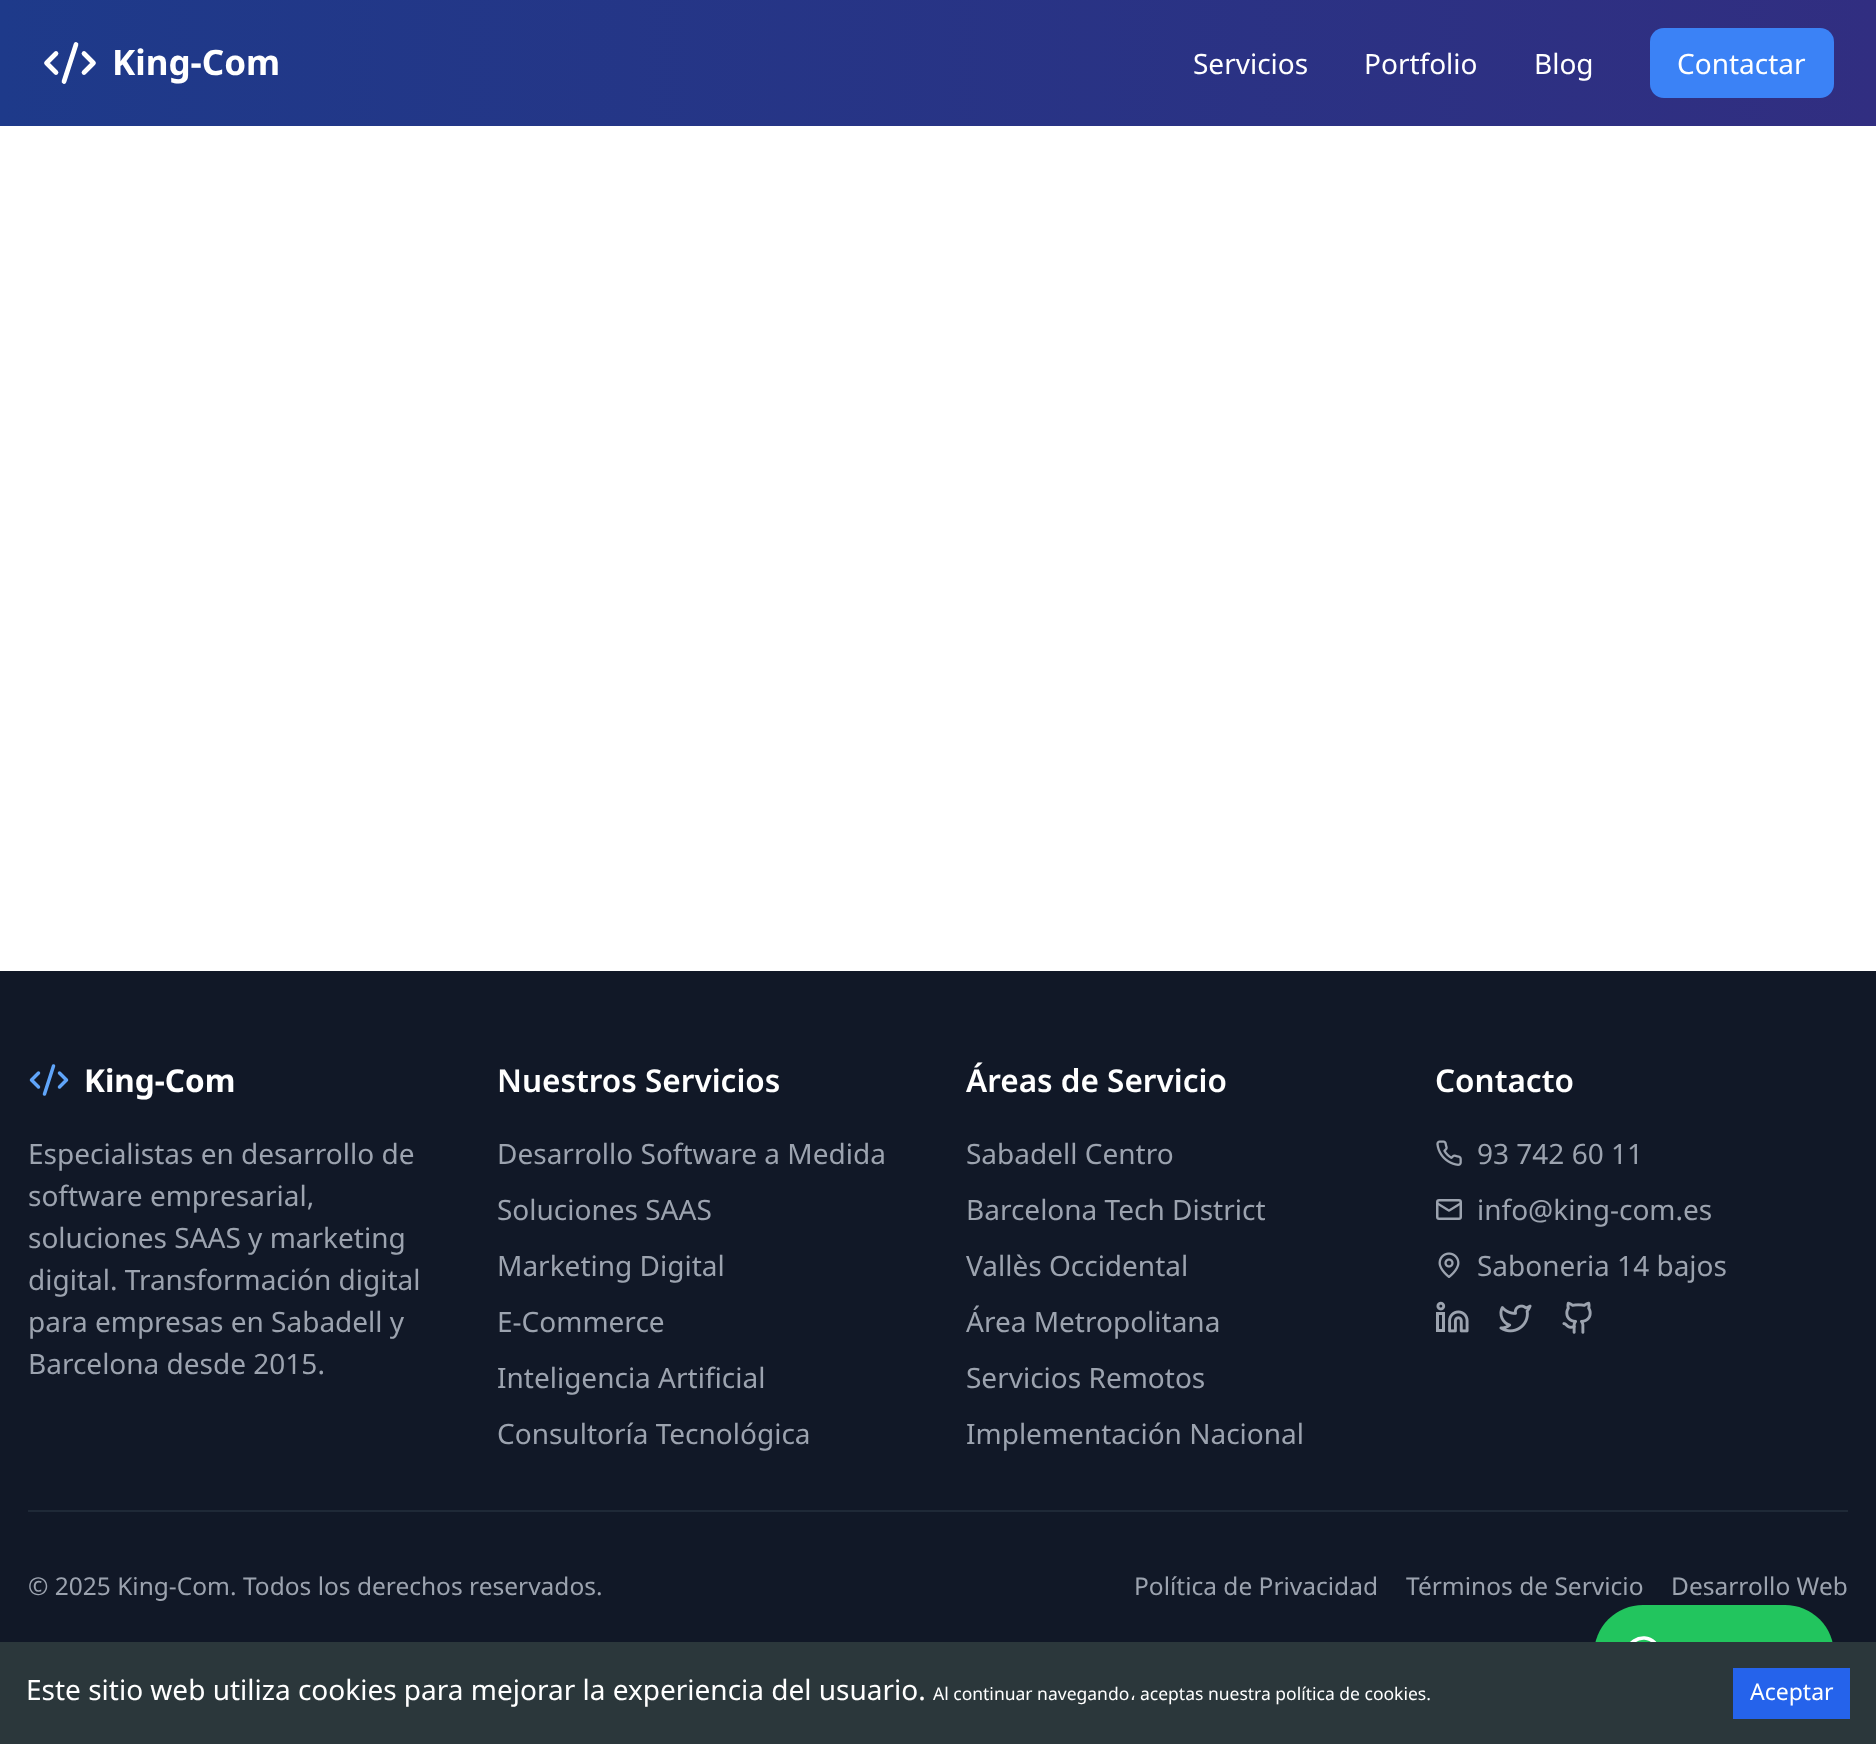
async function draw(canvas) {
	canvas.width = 1876;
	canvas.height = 1744;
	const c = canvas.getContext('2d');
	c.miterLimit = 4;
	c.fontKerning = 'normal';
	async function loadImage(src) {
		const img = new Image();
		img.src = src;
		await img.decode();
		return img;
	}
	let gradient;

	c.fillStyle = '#fff';
	c.fillRect(0, 0, 1876, 1744);
	gradient = c.createLinearGradient(0, 63, 1876, 63);
	gradient.addColorStop(0, '#1e3a8a');
	gradient.addColorStop(1, '#312e81');
	c.fillStyle = gradient;
	c.fillRect(0, 0, 1876, 126);
	c.beginPath();
	c.moveTo(84, 72.5);
	c.lineTo(93.5, 63);
	c.lineTo(84, 53.5);
	c.moveTo(56, 53.5);
	c.lineTo(46.5, 63);
	c.lineTo(56, 72.5);
	c.moveTo(76, 44.5);
	c.lineTo(64, 81.5);
	c.strokeStyle = '#fff';
	c.lineWidth = 4.7;
	c.lineCap = 'round';
	c.lineJoin = 'round';
	c.stroke();
	c.font = 'bold 35px Noto Sans';
	c.fillStyle = '#fff';
	c.fillText('King-Com', 112, 75);
	c.font = '28px Noto Sans';
	for (const [text, x, y] of [
		['Servicios', 1193, 74],
		['Portfolio', 1364, 74],
		['Blog', 1534, 74],
	]) {
		c.fillText(text, x, y);
	}
	c.fillStyle = '#3b82f6';
	c.beginPath();
	c.roundRect(1650, 28, 184, 70, 14);
	c.fill();
	c.fillStyle = '#fff';
	c.fillText('Contactar', 1677, 74);
	c.fillStyle = '#111827';
	c.fillRect(0, 971, 1876, 671);
	c.beginPath();
	c.moveTo(59.5, 1087);
	c.lineTo(66.5, 1080);
	c.lineTo(59.5, 1073);
	c.moveTo(38.5, 1073);
	c.lineTo(31.5, 1080);
	c.lineTo(38.5, 1087);
	c.moveTo(53.5, 1066);
	c.lineTo(44.5, 1094);
	c.strokeStyle = '#60a5fa';
	c.lineWidth = 3.5;
	c.stroke();
	c.font = 'bold 31.5px Noto Sans';
	c.fillStyle = '#fff';
	c.fillText('King-Com', 84, 1092);
	c.font = '28px Noto Sans';
	c.fillStyle = '#9ca3af';
	for (const [text, x, y] of [
		['Especialistas en desarrollo de', 28, 1164],
		['software empresarial,', 28, 1206],
		['soluciones SAAS y marketing', 28, 1248],
		['digital. Transformación digital', 28, 1290],
		['para empresas en Sabadell y', 28, 1332],
		['Barcelona desde 2015.', 28, 1374],
	]) {
		c.fillText(text, x, y);
	}
	c.font = '600 31.5px Noto Sans';
	c.fillStyle = '#fff';
	c.fillText('Nuestros Servicios', 497, 1092);
	c.font = '28px Noto Sans';
	c.fillStyle = '#9ca3af';
	for (const [text, x, y] of [
		['Desarrollo Software a Medida', 497, 1164],
		['Soluciones SAAS', 497, 1220],
		['Marketing Digital', 497, 1276],
		['E-Commerce', 497, 1332],
		['Inteligencia Artificial', 497, 1388],
		['Consultoría Tecnológica', 497, 1444],
	]) {
		c.fillText(text, x, y);
	}
	c.font = '600 31.5px Noto Sans';
	c.fillStyle = '#fff';
	c.fillText('Áreas de Servicio', 966, 1092);
	c.font = '28px Noto Sans';
	c.fillStyle = '#9ca3af';
	for (const [text, x, y] of [
		['Sabadell Centro', 966, 1164],
		['Barcelona Tech District', 966, 1220],
		['Vallès Occidental', 966, 1276],
		['Área Metropolitana', 966, 1332],
		['Servicios Remotos', 966, 1388],
		['Implementación Nacional', 966, 1444],
	]) {
		c.fillText(text, x, y);
	}
	c.font = '600 31.5px Noto Sans';
	c.fillStyle = '#fff';
	c.fillText('Contacto', 1435, 1092);
	c.drawImage(await loadImage('img1.png'), 1436, 1140, 26, 26);
	c.font = '28px Noto Sans';
	c.fillStyle = '#9ca3af';
	c.fillText('93 742 60 11', 1477, 1164);
	c.beginPath();
	c.roundRect(1437.25, 1200.25, 23.5, 18.5, 1.75);
	c.strokeStyle = '#9ca3af';
	c.lineWidth = 2.5;
	c.lineJoin = 'miter';
	c.stroke();
	c.beginPath();
	c.moveTo(1460.5, 1203.5);
	c.lineTo(1450, 1210);
	c.bezierCurveTo(1449.5, 1210.5, 1448.5, 1210.5, 1448, 1210);
	c.lineTo(1437.5, 1203.5);
	c.lineWidth = 2.3;
	c.lineJoin = 'round';
	c.stroke();
	c.fillText('info@king-com.es', 1477, 1220);
	c.drawImage(await loadImage('img2.png'), 1438, 1252, 22, 26);
	c.fillText('Saboneria 14 bajos', 1477, 1276);
	c.drawImage(await loadImage('img3.png'), 1436, 1301, 33, 32);
	c.drawImage(await loadImage('img4.png'), 1499, 1304, 33, 29);
	c.drawImage(await loadImage('img5.png'), 1562, 1301, 30, 33);
	c.fillStyle = '#1f2937';
	c.fillRect(28, 1510, 1820, 2);
	c.font = '24.5px Noto Sans';
	c.fillStyle = '#9ca3af';
	for (const [text, x, y] of [
		['© 2025 King-Com. Todos los derechos reservados.', 28, 1595],
		['Política de Privacidad', 1134, 1595],
		['Términos de Servicio', 1406, 1595],
		['Desarrollo Web', 1671, 1595],
	]) {
		c.fillText(text, x, y);
	}
	c.fillStyle = '#22c55e';
	c.beginPath();
	c.roundRect(1594, 1605, 240, 98, 49);
	c.fill();
	c.beginPath();
	c.moveTo(1636, 1668);
	c.bezierCurveTo(1643, 1671.5, 1651.5, 1669.5, 1656, 1663);
	c.bezierCurveTo(1660.5, 1656.5, 1660, 1648, 1654.5, 1642.5);
	c.bezierCurveTo(1649, 1637, 1640.5, 1636.5, 1634, 1641);
	c.bezierCurveTo(1627.5, 1645.5, 1625.5, 1654, 1629, 1661);
	c.lineTo(1626, 1671);
	c.closePath();
	c.strokeStyle = '#fff';
	c.lineWidth = 3.5;
	c.stroke();
	c.fillStyle = '#2b373b';
	c.fillRect(0, 1642, 1876, 102);
	c.font = '28px Noto Sans';
	c.fillStyle = '#fff';
	c.fillText('Este sitio web utiliza cookies para mejorar la experiencia del usuario.', 26, 1700);
	c.font = '17.5px Noto Sans';
	c.fillText('Al continuar navegando', 933, 1700);
	c.font = '17.5px DejaVu Sans';
	c.fillText('،', 1130, 1700);
	c.font = '17.5px Noto Sans';
	c.fillText('aceptas nuestra política de cookies.', 1140, 1700);
	c.fillStyle = '#2563eb';
	c.fillRect(1733, 1668, 117, 51);
	c.font = '23px Noto Sans';
	c.fillStyle = '#fff';
	c.fillText('Aceptar', 1750, 1700);
}

draw(document.querySelector('canvas'));
